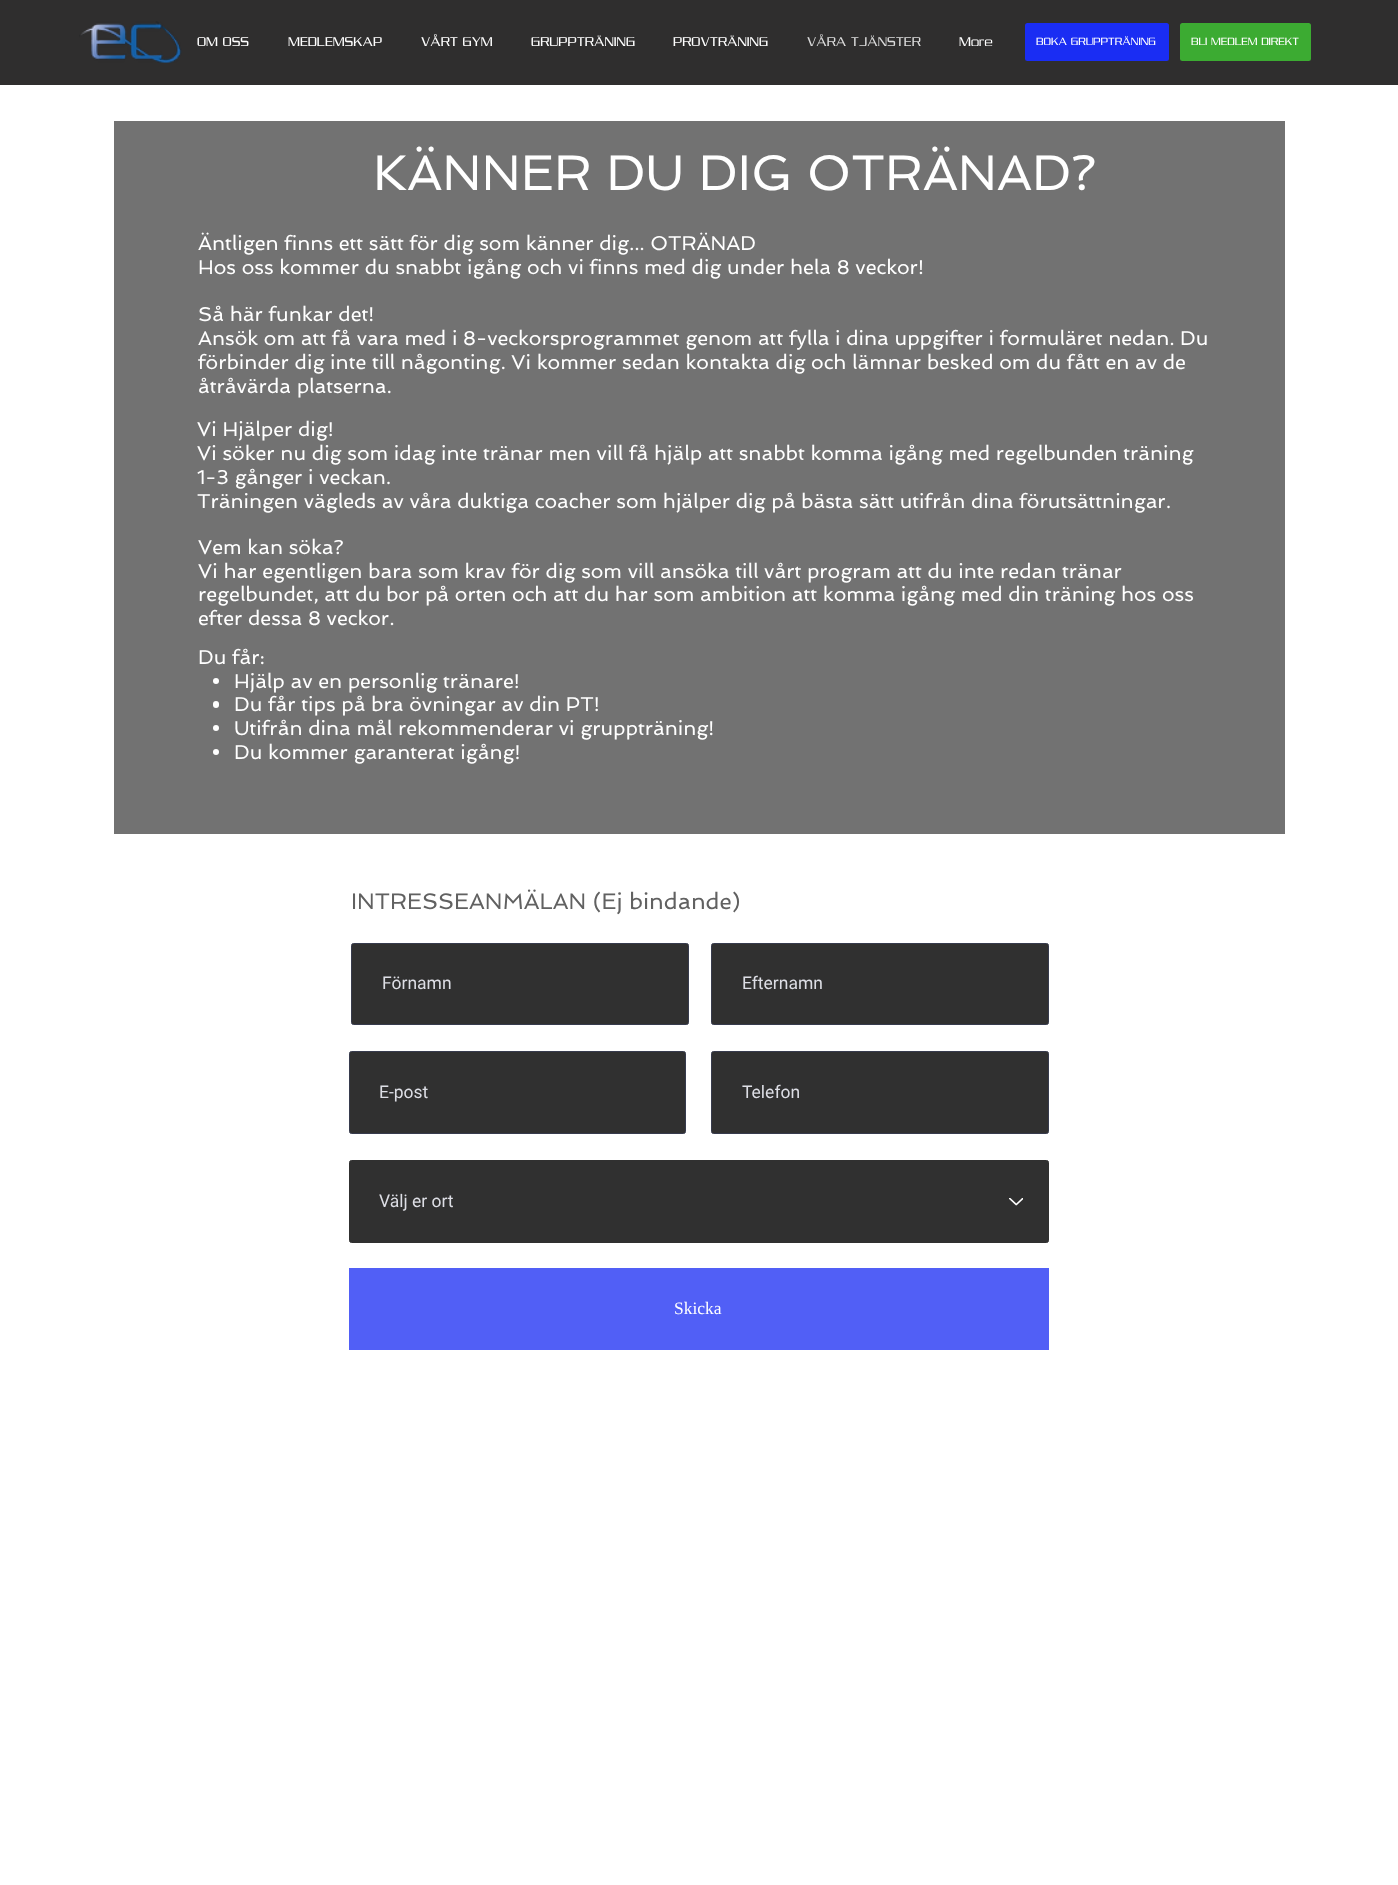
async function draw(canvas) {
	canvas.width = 1398;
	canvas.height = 1885;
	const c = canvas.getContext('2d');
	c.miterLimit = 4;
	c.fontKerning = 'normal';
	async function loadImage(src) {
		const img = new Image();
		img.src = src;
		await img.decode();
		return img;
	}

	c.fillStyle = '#fff';
	c.fillRect(0, 0, 1398, 1885);
	c.fillStyle = '#2f2e2e';
	c.fillRect(0, 0, 1398, 85);
	c.drawImage(await loadImage('img1.png'), 79, 21, 103, 42);
	c.font = '300 13.75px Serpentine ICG';
	c.fillStyle = '#fff';
	for (const [text, x, y] of [
		['OM OSS', 197, 46],
		['MEDLEMSKAP', 288, 46],
		['VÅRT GYM', 421, 46],
		['GRUPPTRÄNING', 531, 46],
		['PROVTRÄNING', 673, 46],
	]) {
		c.fillText(text, x, y);
	}
	c.fillStyle = '#dbdbdb';
	c.fillText('VÅRA TJÄNSTER', 807, 46);
	c.fillStyle = '#fff';
	c.fillText('More', 959, 46);
	c.fillStyle = '#1a2df3';
	c.beginPath();
	c.roundRect(1025, 23, 144, 38, 2.5);
	c.fill();
	c.font = '300 11.25px Serpentine ICG';
	c.fillStyle = '#fff';
	c.fillText('BOKA GRUPPTRÄNING', 1036, 45);
	c.fillStyle = '#3cab32';
	c.beginPath();
	c.roundRect(1180, 23, 131, 38, 2.5);
	c.fill();
	c.fillStyle = '#fff';
	c.fillText('BLI MEDLEM DIREKT', 1191, 45);
	c.fillStyle = '#727272';
	c.fillRect(114, 121, 1171, 713);
	c.font = '50px Spinnaker';
	c.fillStyle = '#fff';
	c.fillText('KÄNNER DU DIG OTRÄNAD?', 373, 190);
	c.font = '20px Spinnaker';
	for (const [text, x, y] of [
		['Äntligen finns ett sätt för dig som känner dig... OTRÄNAD', 198, 250],
		['Hos oss kommer du snabbt igång och vi finns med dig under hela 8 veckor!', 198, 274],
		['Så här funkar det!', 198, 321],
		['Ansök om att få vara med i 8-veckorsprogrammet genom att fylla i dina uppgifter i formuläret nedan. Du', 198, 345],
		['förbinder dig inte till någonting. Vi kommer sedan kontakta dig och lämnar besked om du fått en av de', 198, 369],
		['åtråvärda platserna.', 198, 393],
		['Vi Hjälper dig!', 197, 436],
		['Vi söker nu dig som idag inte tränar men vill få hjälp att snabbt komma igång med regelbunden träning', 197, 460],
		['1-3 gånger i veckan.', 197, 484],
		['Träningen vägleds av våra duktiga coacher som hjälper dig på bästa sätt utifrån dina förutsättningar.', 197, 508],
		['Vem kan söka?', 198, 554],
		['Vi har egentligen bara som krav för dig som vill ansöka till vårt program att du inte redan tränar', 198, 578],
		['regelbundet, att du bor på orten och att du har som ambition att komma igång med din träning hos oss', 198, 601],
		['efter dessa 8 veckor.', 198, 625],
		['Du får:', 198, 664],
	]) {
		c.fillText(text, x, y);
	}
	c.beginPath();
	c.arc(216, 681, 3, 0, 2 * Math.PI);
	c.fill();
	c.fillText('Hjälp av en personlig tränare!', 234, 688);
	c.beginPath();
	c.roundRect(213, 701, 6, 7, 3);
	c.fill();
	c.fillText('Du får tips på bra övningar av din PT!', 234, 711);
	c.beginPath();
	c.arc(216, 728, 3, 0, 2 * Math.PI);
	c.fill();
	c.fillText('Utifrån dina mål rekommenderar vi gruppträning!', 234, 735);
	c.beginPath();
	c.arc(216, 752, 3, 0, 2 * Math.PI);
	c.fill();
	c.fillText('Du kommer garanterat igång!', 234, 759);
	c.font = '22.5px Spinnaker';
	c.fillStyle = '#616161';
	c.fillText('INTRESSEANMÄLAN (Ej bindande)', 351, 909);
	c.fillStyle = '#303030';
	c.beginPath();
	c.roundRect(351.5, 943.5, 337, 81, 2);
	c.fill();
	c.strokeStyle = '#373b4d';
	c.stroke();
	c.font = '17.5px Roboto';
	c.fillStyle = '#dddee5';
	c.fillText('Förnamn', 382, 989);
	c.fillStyle = '#303030';
	c.beginPath();
	c.roundRect(711.5, 943.5, 337, 81, 2);
	c.fill();
	c.stroke();
	c.fillStyle = '#dddee5';
	c.fillText('Efternamn', 742, 989);
	c.fillStyle = '#303030';
	c.beginPath();
	c.roundRect(349.5, 1051.5, 336, 82, 2);
	c.fill();
	c.stroke();
	c.fillStyle = '#dddee5';
	c.fillText('E-post', 379, 1098);
	c.fillStyle = '#303030';
	c.beginPath();
	c.roundRect(711.5, 1051.5, 337, 82, 2);
	c.fill();
	c.stroke();
	c.fillStyle = '#dddee5';
	c.fillText('Telefon', 742, 1098);
	c.fillStyle = '#303030';
	c.beginPath();
	c.roundRect(349.5, 1160.5, 699, 82, 2);
	c.fill();
	c.strokeStyle = '#303030';
	c.stroke();
	c.fillStyle = '#dddee5';
	c.fillText('Välj er ort', 379, 1207);
	c.drawImage(await loadImage('img2.png'), 1009, 1198, 14, 8);
	c.fillStyle = '#515ff6';
	c.fillRect(349, 1268, 700, 82);
	c.font = '17.5px Liberation Serif';
	c.fillStyle = '#fff';
	c.fillText('Skicka', 674, 1314);
}

draw(document.querySelector('canvas'));
